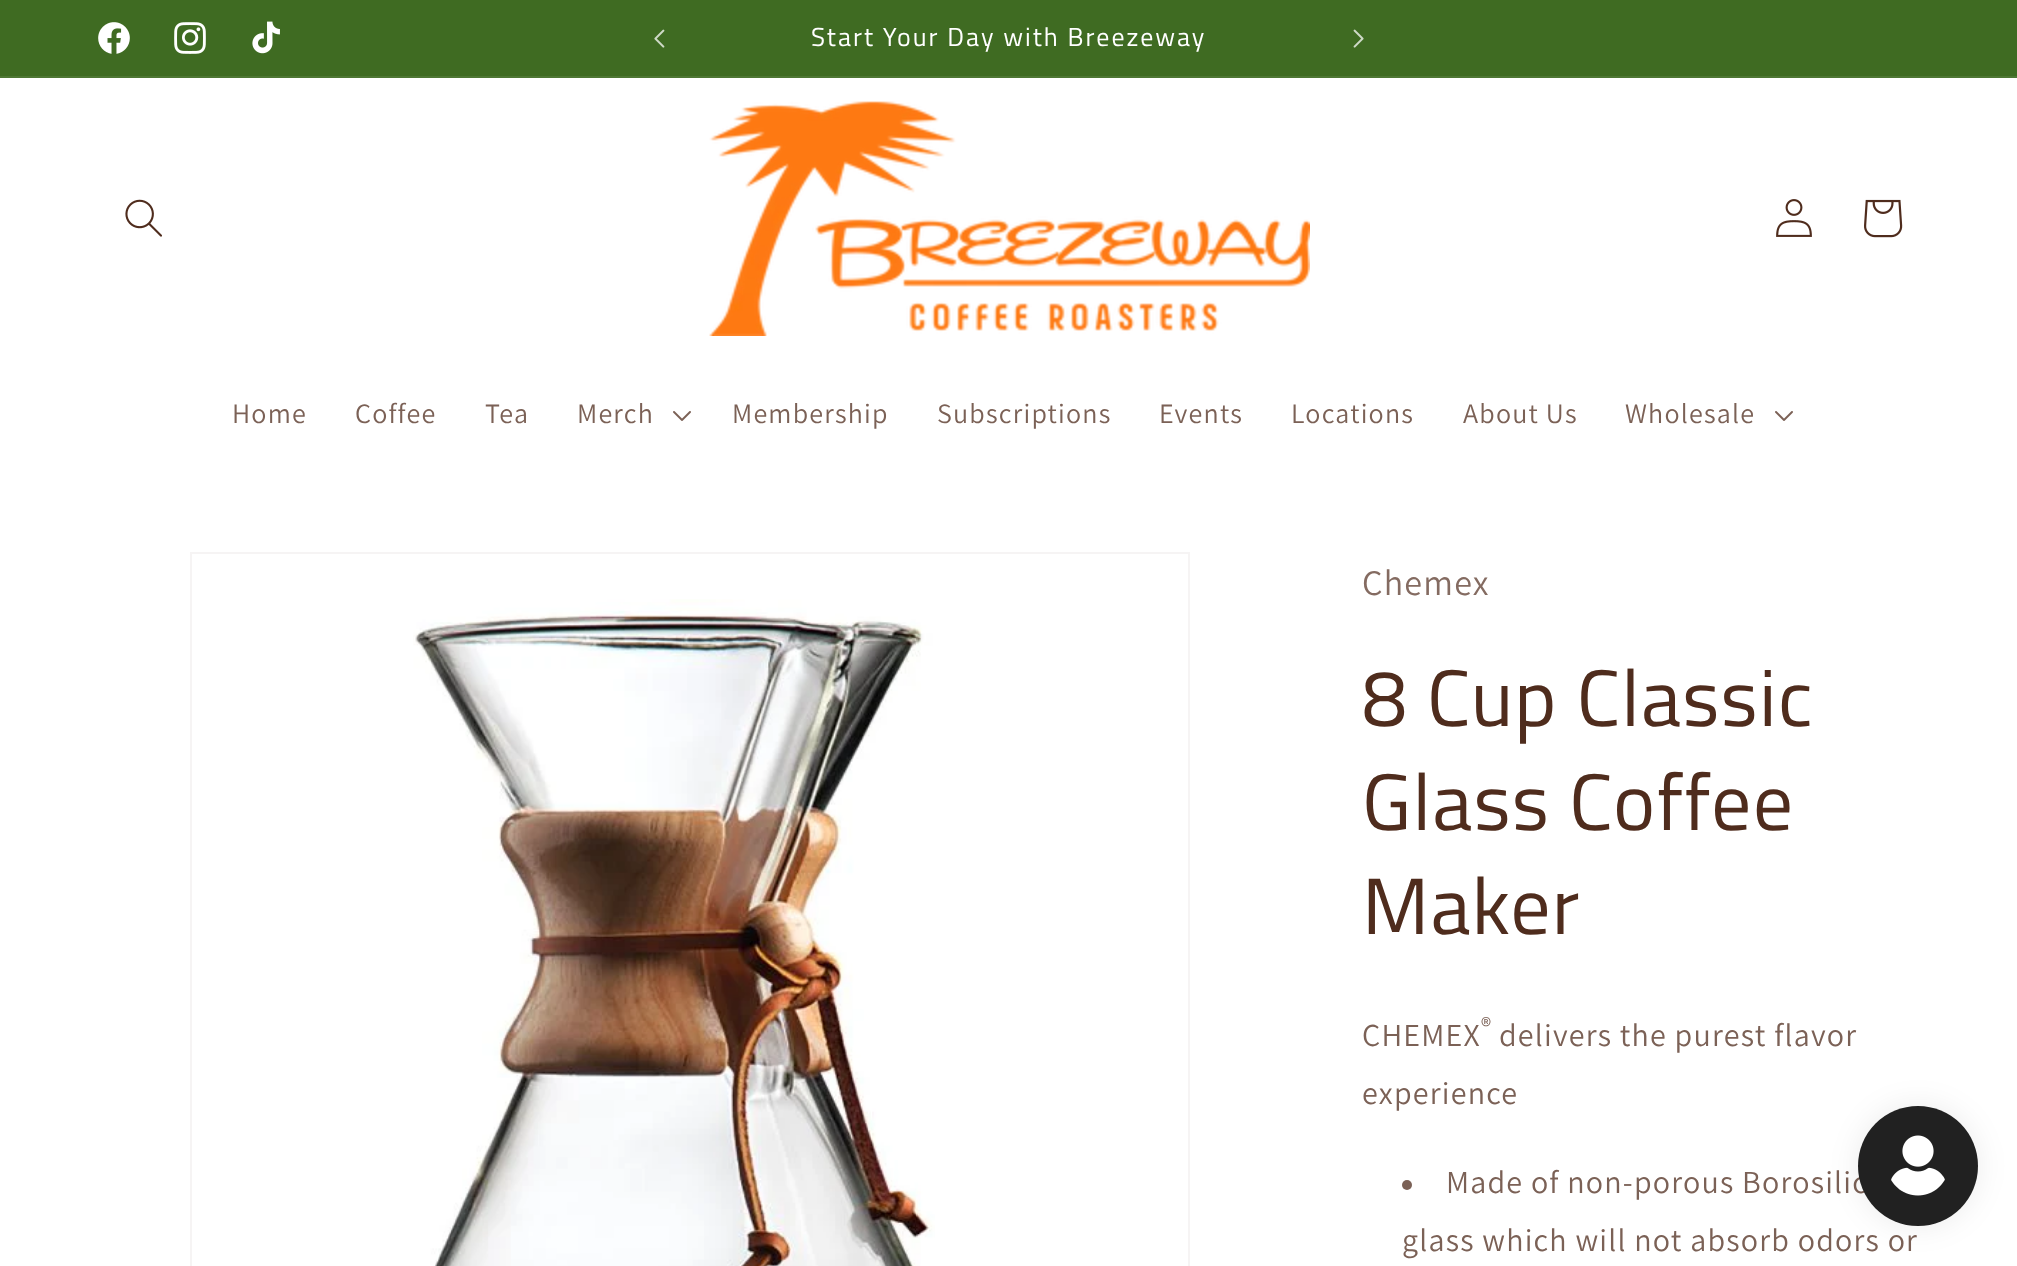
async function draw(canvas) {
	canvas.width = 2017;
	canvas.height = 1266;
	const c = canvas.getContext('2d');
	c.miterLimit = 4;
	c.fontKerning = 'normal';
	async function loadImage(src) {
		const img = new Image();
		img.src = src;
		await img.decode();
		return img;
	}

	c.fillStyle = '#fff';
	c.fillRect(0, 0, 2017, 1266);
	c.fillStyle = '#3f6b22';
	c.fillRect(0, 0, 2017, 76);
	c.fillStyle = '#4e7734';
	c.fillRect(0, 76, 2017, 2);
	c.drawImage(await loadImage('img1.png'), 98, 22, 32, 32);
	c.drawImage(await loadImage('img2.png'), 174, 22, 32, 32);
	c.drawImage(await loadImage('img3.png'), 252, 21, 28, 33);
	c.drawImage(await loadImage('img4.png'), 654, 29, 11, 19);
	c.letterSpacing = '2px';
	c.font = '26px Titillium Web';
	c.fillStyle = '#fff';
	c.fillText('Start Your Day with Breezeway', 811, 46);
	c.drawImage(await loadImage('img5.png'), 1353, 29, 11, 19);
	c.drawImage(await loadImage('img6.png'), 125, 199, 37, 38);
	c.drawImage(await loadImage('img7.png'), 709, 101, 601, 235);
	c.drawImage(await loadImage('img8.png'), 1776, 199, 36, 38);
	c.drawImage(await loadImage('img9.png'), 1864, 199, 39, 39);
	c.letterSpacing = '1.2px';
	c.font = '28px Assistant';
	c.fillStyle = '#7b6156';
	for (const [text, x, y] of [
		['Home', 232, 423],
		['Coffee', 355, 423],
		['Tea', 485, 423],
		['Merch', 577, 423],
	]) {
		c.fillText(text, x, y);
	}
	c.drawImage(await loadImage('img10.png'), 673, 411, 18, 10);
	for (const [text, x, y] of [
		['Membership', 732, 423],
		['Subscriptions', 937, 423],
		['Events', 1159, 423],
		['Locations', 1291, 423],
		['About Us', 1463, 423],
		['Wholesale', 1625, 423],
	]) {
		c.fillText(text, x, y);
	}
	c.drawImage(await loadImage('img10.png'), 1775, 411, 18, 10);
	c.strokeStyle = '#f6f4f4';
	c.lineWidth = 2;
	c.strokeRect(191, 553, 998, 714);
	c.drawImage(await loadImage('img11.png'), 413, 599, 522, 667);
	c.font = '36px Assistant';
	c.fillStyle = '#846b61';
	c.fillText('Chemex', 1362, 595);
	c.font = '80px Titillium Web';
	c.fillStyle = '#4f2c1d';
	for (const [text, x, y] of [
		['8 Cup Classic', 1362, 726],
		['Glass Coffee', 1362, 830],
		['Maker', 1362, 934],
	]) {
		c.fillText(text, x, y);
	}
	c.font = '32px Assistant';
	c.fillStyle = '#7b6156';
	c.fillText('CHEMEX', 1362, 1046);
	c.font = '24px Assistant';
	c.fillText('®', 1481, 1034);
	c.font = '32px Assistant';
	c.fillText('delivers the purest flavor', 1499, 1046);
	c.fillText('experience', 1362, 1104);
	c.beginPath();
	c.arc(1407, 1185, 5, 0, 2 * Math.PI);
	c.fill();
	c.fillText('Made of non-porous Borosilic', 1446, 1193);
	c.fillText('glass which will not absorb odors or', 1402, 1251);
	c.fillStyle = '#00000014';
	c.filter = 'blur(15px)';
	c.beginPath();
	c.roundRect(1858, 1106, 120, 120, 60);
	c.fill();
	c.filter = 'none';
	c.fillStyle = '#212121';
	c.beginPath();
	c.arc(1918, 1166, 60, 0, 2 * Math.PI);
	c.fill();
	c.drawImage(await loadImage('img12.png'), 1891, 1135, 54, 61);
}

draw(document.querySelector('canvas'));
